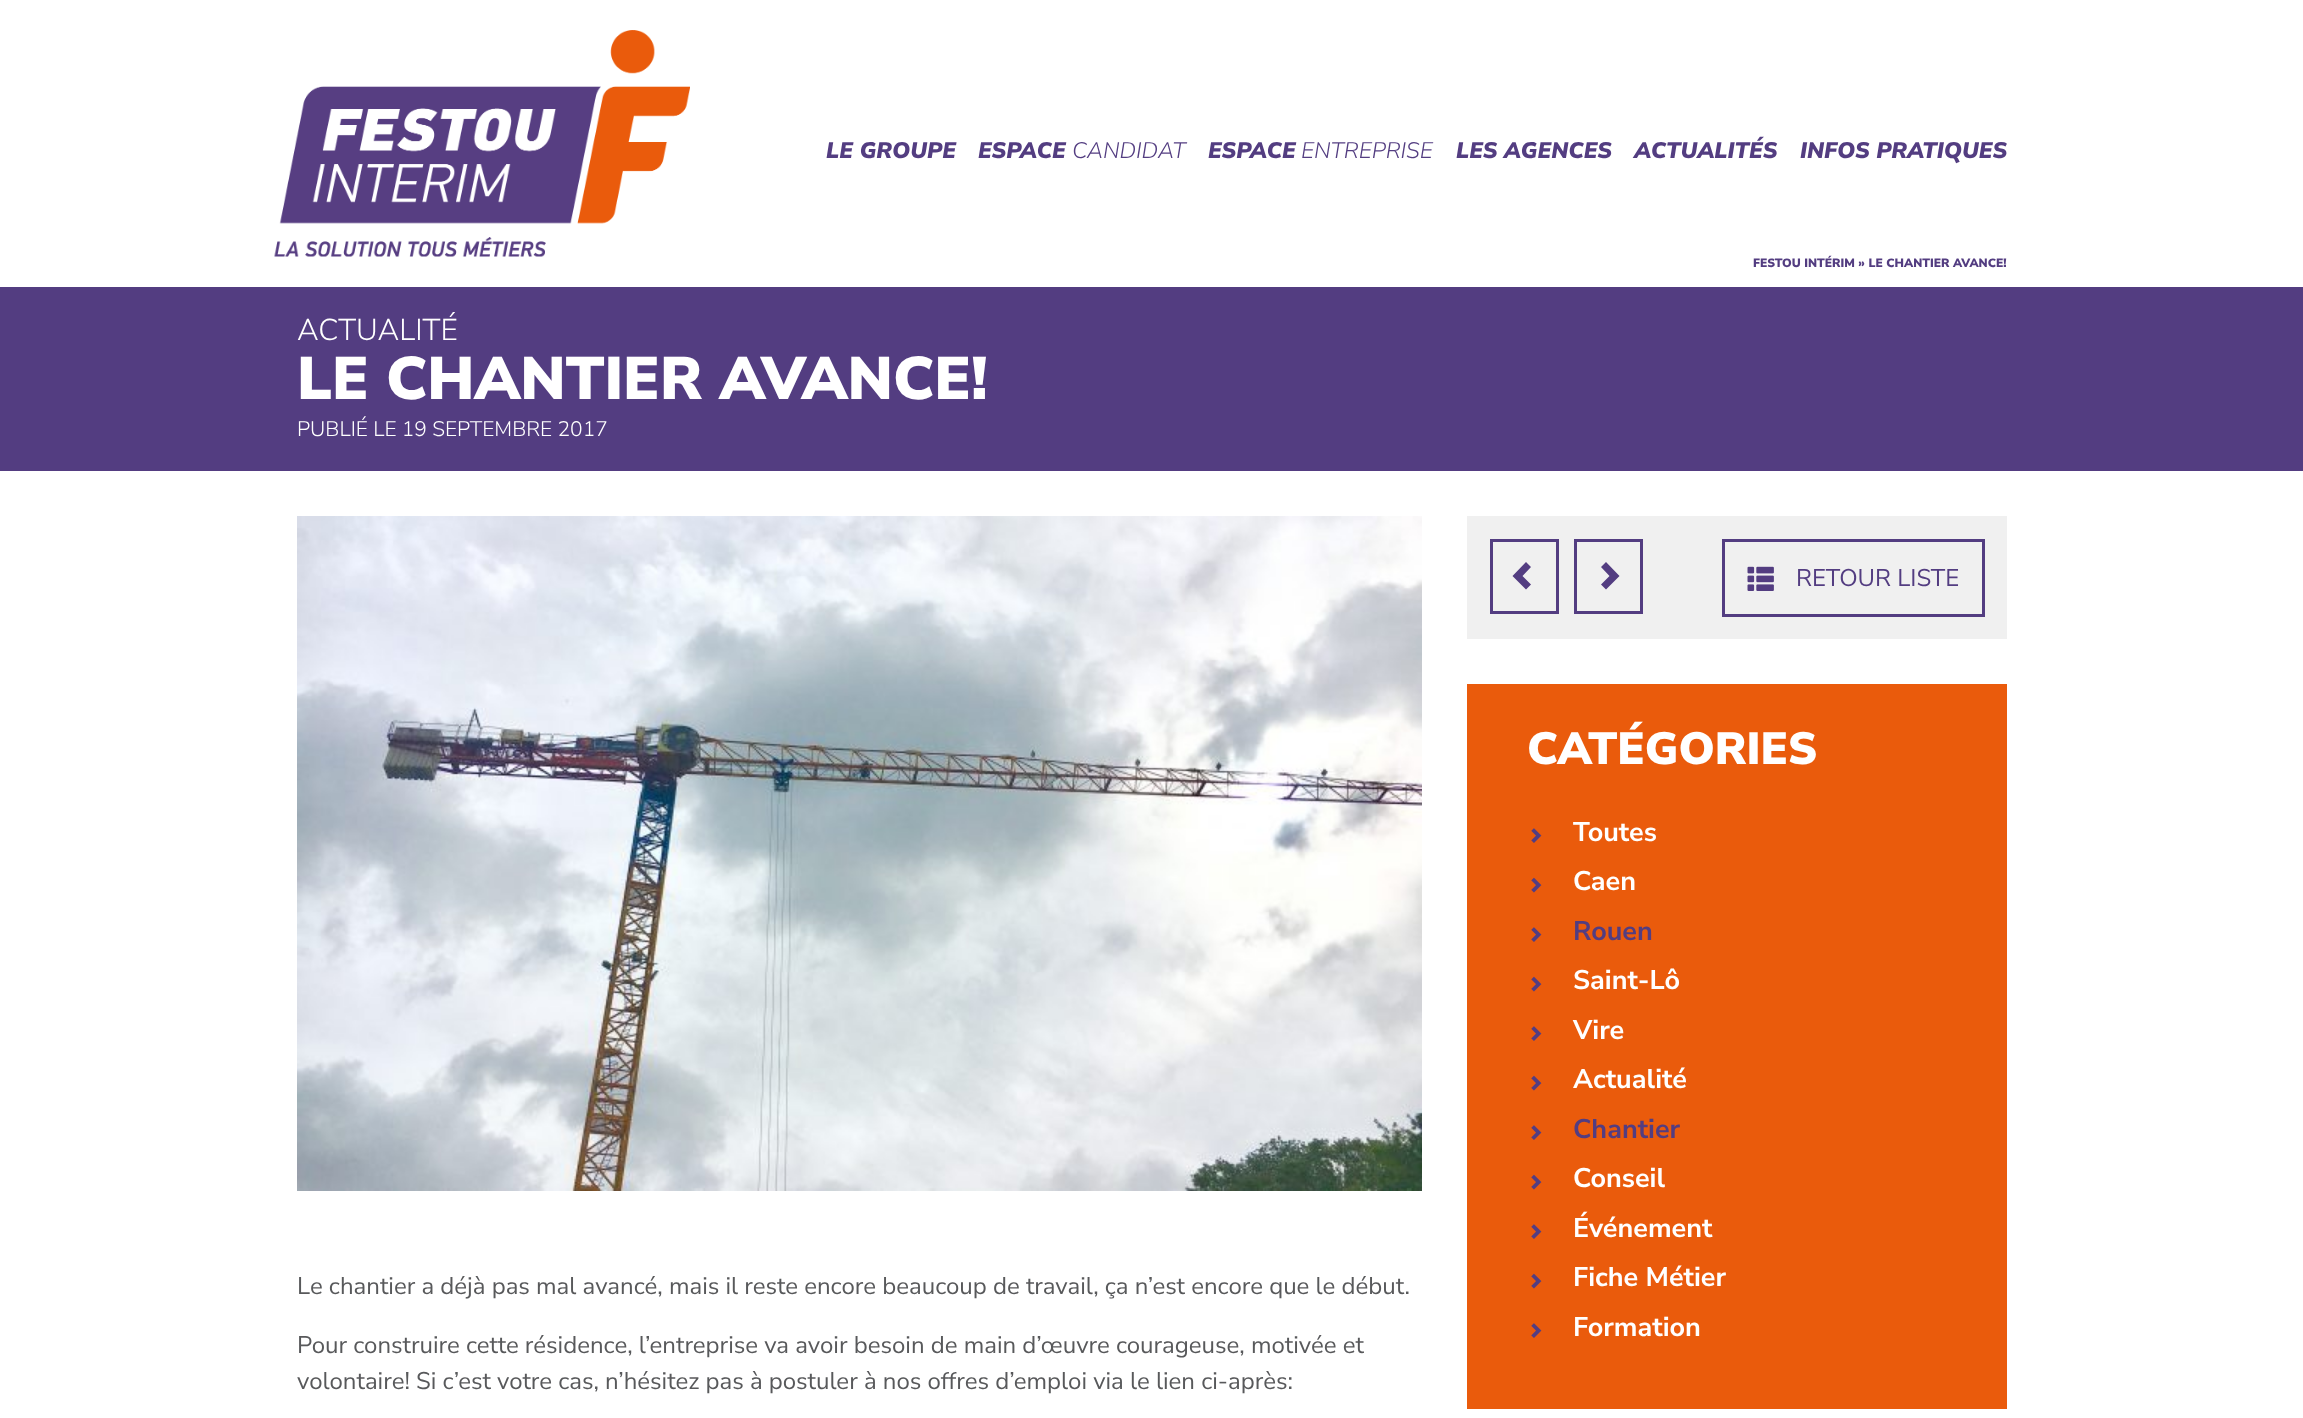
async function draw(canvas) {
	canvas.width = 2303;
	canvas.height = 1418;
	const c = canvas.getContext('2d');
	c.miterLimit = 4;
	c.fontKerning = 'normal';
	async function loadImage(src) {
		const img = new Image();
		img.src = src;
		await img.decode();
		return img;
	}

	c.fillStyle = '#fff';
	c.fillRect(0, 0, 2303, 1418);
	c.drawImage(await loadImage('img1.png'), 274, 30, 416, 227);
	c.font = 'italic 900 22.5px Nunito Sans';
	c.fillStyle = '#533d81';
	c.fillText('LE GROUPE', 826, 158);
	c.fillText('ESPACE', 978, 158);
	c.font = 'italic 300 22.5px Nunito Sans';
	c.fillText('CANDIDAT', 1072, 158);
	c.font = 'italic 900 22.5px Nunito Sans';
	c.fillText('ESPACE', 1208, 158);
	c.font = 'italic 300 22.5px Nunito Sans';
	c.fillText('ENTREPRISE', 1301, 158);
	c.font = 'italic 900 22.5px Nunito Sans';
	for (const [text, x, y] of [
		['LES AGENCES', 1456, 158],
		['ACTUALITÉS', 1634, 158],
		['INFOS PRATIQUES', 1800, 158],
	]) {
		c.fillText(text, x, y);
	}
	c.font = '900 12px Nunito Sans';
	c.fillText('FESTOU INTÉRIM » LE CHANTIER AVANCE!', 1753, 267);
	c.fillRect(0, 287, 2303, 184);
	c.font = '300 30px Nunito Sans';
	c.fillStyle = '#fff';
	c.fillText('ACTUALITÉ', 297, 340);
	c.font = '900 60px Nunito Sans';
	c.fillText('LE CHANTIER AVANCE!', 297, 399);
	c.font = '300 21px Nunito Sans';
	c.fillText('PUBLIÉ LE 19 SEPTEMBRE 2017', 297, 436);
	c.drawImage(await loadImage('img2.png'), 297, 516, 1125, 675);
	c.font = '24px Nunito Sans';
	c.fillStyle = '#58595b';
	for (const [text, x, y] of [
		['Le chantier a déjà pas mal avancé, mais il reste encore beaucoup de travail, ça n’est encore que le début.', 297, 1294],
		['Pour construire cette résidence, l’entreprise va avoir besoin de main d’œuvre courageuse, motivée et', 297, 1353],
		['volontaire! Si c’est votre cas, n’hésitez pas à postuler à nos offres d’emploi via le lien ci-après:', 297, 1389],
	]) {
		c.fillText(text, x, y);
	}
	c.fillStyle = '#f0f0f0';
	c.fillRect(1467, 516, 540, 123);
	c.strokeStyle = '#533d81';
	c.lineWidth = 3;
	c.strokeRect(1491.5, 540.5, 66, 72);
	c.fillStyle = '#533d81';
	c.beginPath();
	c.moveTo(1531, 567);
	c.lineTo(1522.5, 576);
	c.lineTo(1531, 584.5);
	c.lineTo(1526, 589.5);
	c.lineTo(1512.5, 576);
	c.lineTo(1526, 562);
	c.closePath();
	c.fill();
	c.strokeRect(1575.5, 540.5, 66, 72);
	c.beginPath();
	c.moveTo(1619.5, 576);
	c.lineTo(1606, 589.5);
	c.lineTo(1601, 584.5);
	c.lineTo(1609.5, 576);
	c.lineTo(1601, 567);
	c.lineTo(1606, 562);
	c.closePath();
	c.fill();
	c.strokeRect(1723.5, 540.5, 260, 75);
	c.drawImage(await loadImage('img3.png'), 1747, 566, 27, 25);
	c.fillText('RETOUR LISTE', 1796, 586);
	c.fillStyle = '#ea5b0c';
	c.fillRect(1467, 684, 540, 725);
	c.font = '900 45px Nunito Sans';
	c.fillStyle = '#fff';
	c.fillText('CATÉGORIES', 1527, 764);
	c.drawImage(await loadImage('img4.png'), 1531, 828, 11, 15);
	c.font = 'bold 27px Nunito Sans';
	c.fillText('Toutes', 1573, 841);
	c.drawImage(await loadImage('img5.png'), 1531, 877, 11, 16);
	c.fillText('Caen', 1573, 890);
	c.drawImage(await loadImage('img4.png'), 1531, 927, 11, 15);
	c.fillStyle = '#533d81';
	c.fillText('Rouen', 1573, 940);
	c.drawImage(await loadImage('img5.png'), 1531, 976, 11, 16);
	c.fillStyle = '#fff';
	c.fillText('Saint-Lô', 1573, 989);
	c.drawImage(await loadImage('img4.png'), 1531, 1026, 11, 15);
	c.fillText('Vire', 1573, 1039);
	c.drawImage(await loadImage('img5.png'), 1531, 1075, 11, 16);
	c.fillText('Actualité', 1573, 1088);
	c.drawImage(await loadImage('img4.png'), 1531, 1125, 11, 15);
	c.fillStyle = '#533d81';
	c.fillText('Chantier', 1573, 1138);
	c.drawImage(await loadImage('img5.png'), 1531, 1174, 11, 16);
	c.fillStyle = '#fff';
	c.fillText('Conseil', 1573, 1187);
	c.drawImage(await loadImage('img4.png'), 1531, 1224, 11, 15);
	c.fillText('Événement', 1573, 1237);
	c.drawImage(await loadImage('img5.png'), 1531, 1273, 11, 16);
	c.fillText('Fiche Métier', 1573, 1286);
	c.drawImage(await loadImage('img4.png'), 1531, 1323, 11, 15);
	c.fillText('Formation', 1573, 1336);
}

draw(document.querySelector('canvas'));
